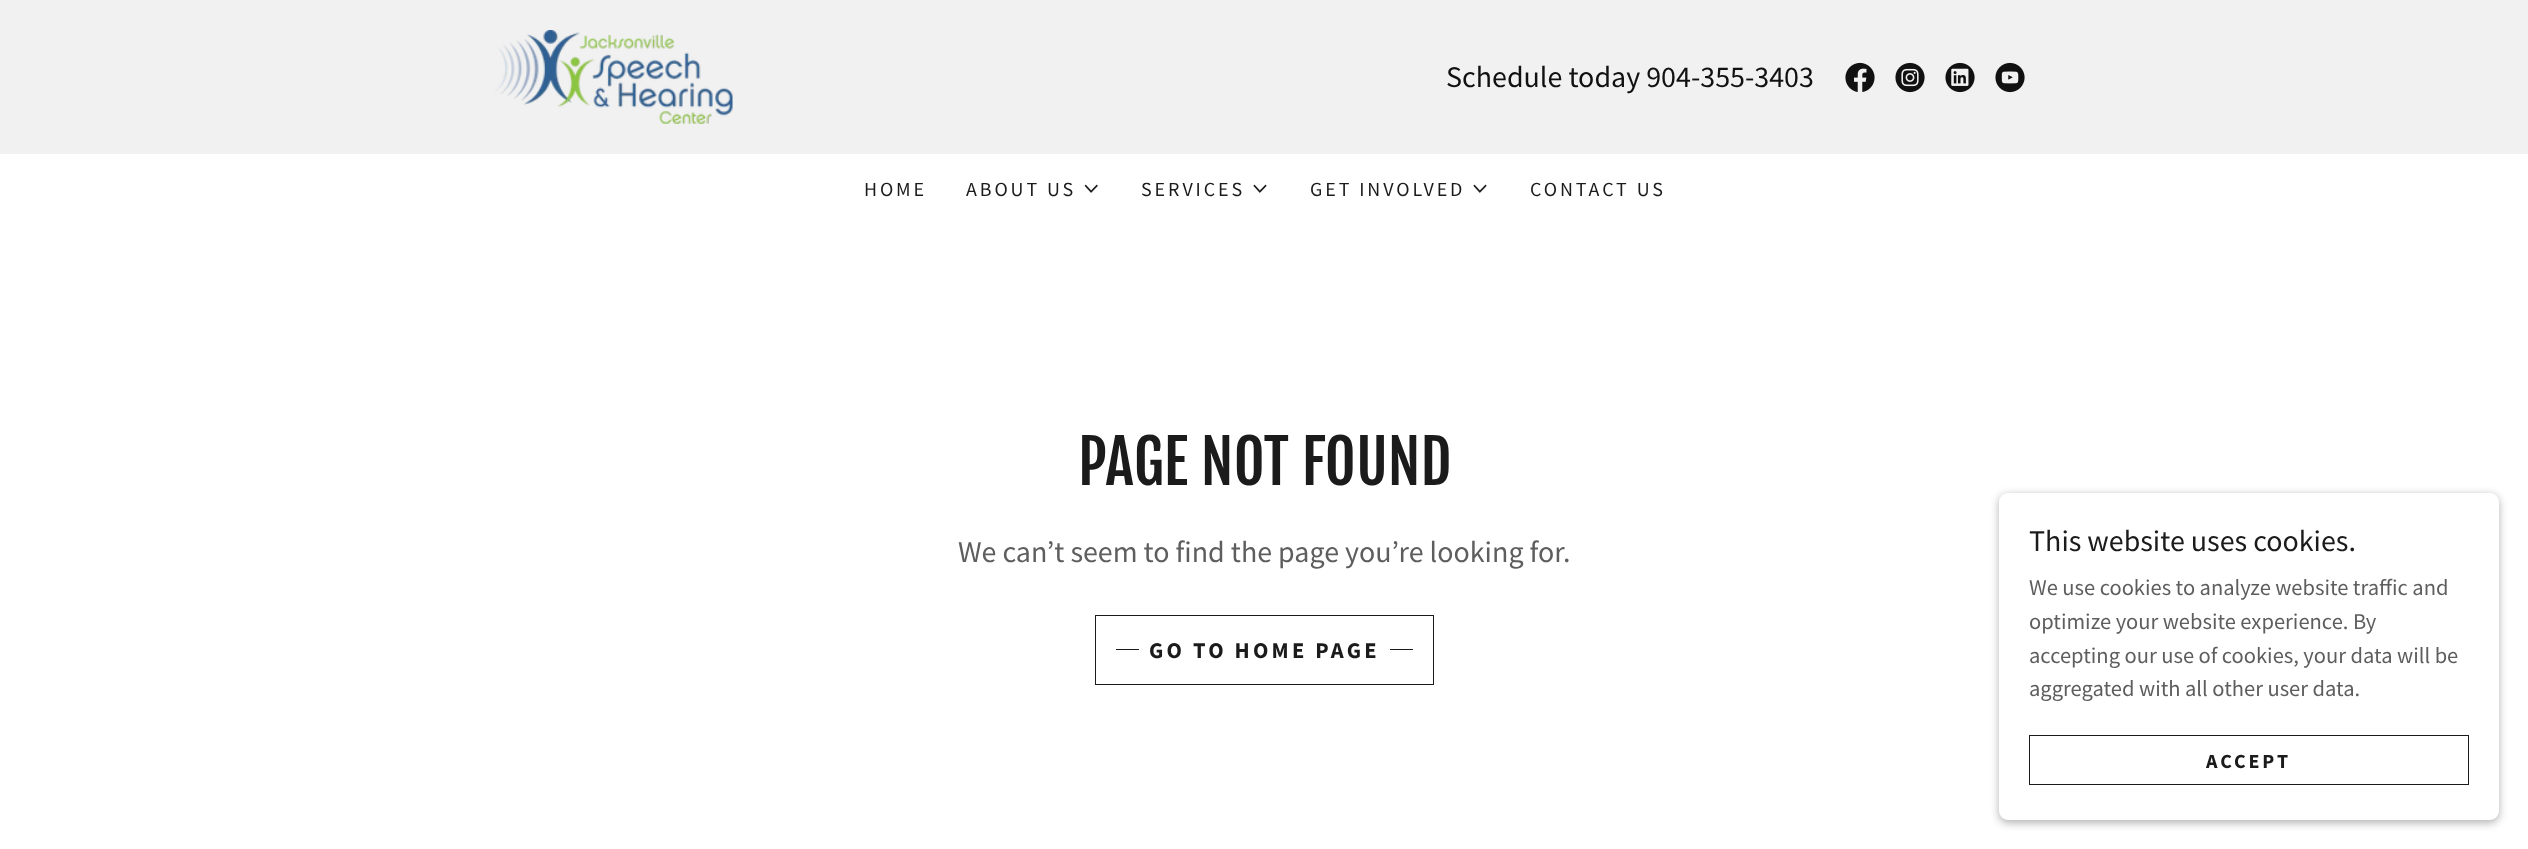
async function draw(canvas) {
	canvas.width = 2528;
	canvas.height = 849;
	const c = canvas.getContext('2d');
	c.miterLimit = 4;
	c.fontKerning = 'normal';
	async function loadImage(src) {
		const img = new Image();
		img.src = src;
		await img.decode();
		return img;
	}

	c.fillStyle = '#fff';
	c.fillRect(0, 0, 2528, 849);
	c.fillStyle = '#f1f1f1';
	c.fillRect(0, 0, 2528, 154);
	c.drawImage(await loadImage('img1.png'), 495, 30, 238, 94);
	c.font = '30px Source Sans Pro';
	c.fillStyle = '#111';
	c.fillText('Schedule today 904-355-3403', 1446, 87);
	c.drawImage(await loadImage('img2.png'), 1845, 62, 30, 30);
	c.drawImage(await loadImage('img3.png'), 1895, 62, 30, 31);
	c.drawImage(await loadImage('img4.png'), 1945, 62, 30, 31);
	c.drawImage(await loadImage('img5.png'), 1995, 62, 30, 31);
	c.letterSpacing = '2.9px';
	c.font = '20px Source Sans Pro';
	c.fillStyle = '#1b1b1b';
	c.fillText('HOME', 864, 196);
	c.fillText('ABOUT US', 966, 196);
	c.drawImage(await loadImage('img6.png'), 1084, 184, 14, 9);
	c.fillText('SERVICES', 1141, 196);
	c.drawImage(await loadImage('img7.png'), 1253, 184, 14, 9);
	c.fillText('GET INVOLVED', 1310, 196);
	c.drawImage(await loadImage('img7.png'), 1473, 184, 14, 9);
	c.fillText('CONTACT US', 1530, 196);
	c.letterSpacing = '0px';
	c.font = '60px Fjalla One';
	c.fillText('PAGE NOT FOUND', 1078, 485);
	c.font = '30px Source Sans Pro';
	c.fillStyle = '#5e5e5e';
	c.fillText('We can’t seem to find the page you’re looking for.', 958, 562);
	c.strokeStyle = '#1b1b1b';
	c.strokeRect(1095.5, 615.5, 338, 69);
	c.fillStyle = '#1b1b1b';
	c.fillRect(1116, 649, 23, 1);
	c.letterSpacing = '3.25px';
	c.font = 'bold 22.5px Source Sans Pro';
	c.fillText('GO TO HOME PAGE', 1149, 658);
	c.fillRect(1390, 649, 23, 1);
	c.fillStyle = '#0000004d';
	c.filter = 'blur(4px)';
	c.beginPath();
	c.roundRect(1999, 495, 500, 328, 9);
	c.fill();
	c.filter = 'none';
	c.fillStyle = '#fff';
	c.beginPath();
	c.roundRect(1999, 493, 500, 327, 9);
	c.fill();
	c.letterSpacing = '0px';
	c.font = '30px Source Sans Pro';
	c.fillStyle = '#1b1b1b';
	c.fillText('This website uses cookies.', 2029, 551);
	c.font = '22.5px Source Sans Pro';
	c.fillStyle = '#5e5e5e';
	for (const [text, x, y] of [
		['We use cookies to analyze website traffic and', 2029, 595],
		['optimize your website experience. By', 2029, 629],
		['accepting our use of cookies, your data will be', 2029, 663],
		['aggregated with all other user data.', 2029, 696],
	]) {
		c.fillText(text, x, y);
	}
	c.strokeRect(2029.5, 735.5, 439, 49);
	c.letterSpacing = '2.9px';
	c.font = 'bold 20px Source Sans Pro';
	c.fillStyle = '#1b1b1b';
	c.fillText('ACCEPT', 2206, 768);
}

draw(document.querySelector('canvas'));
